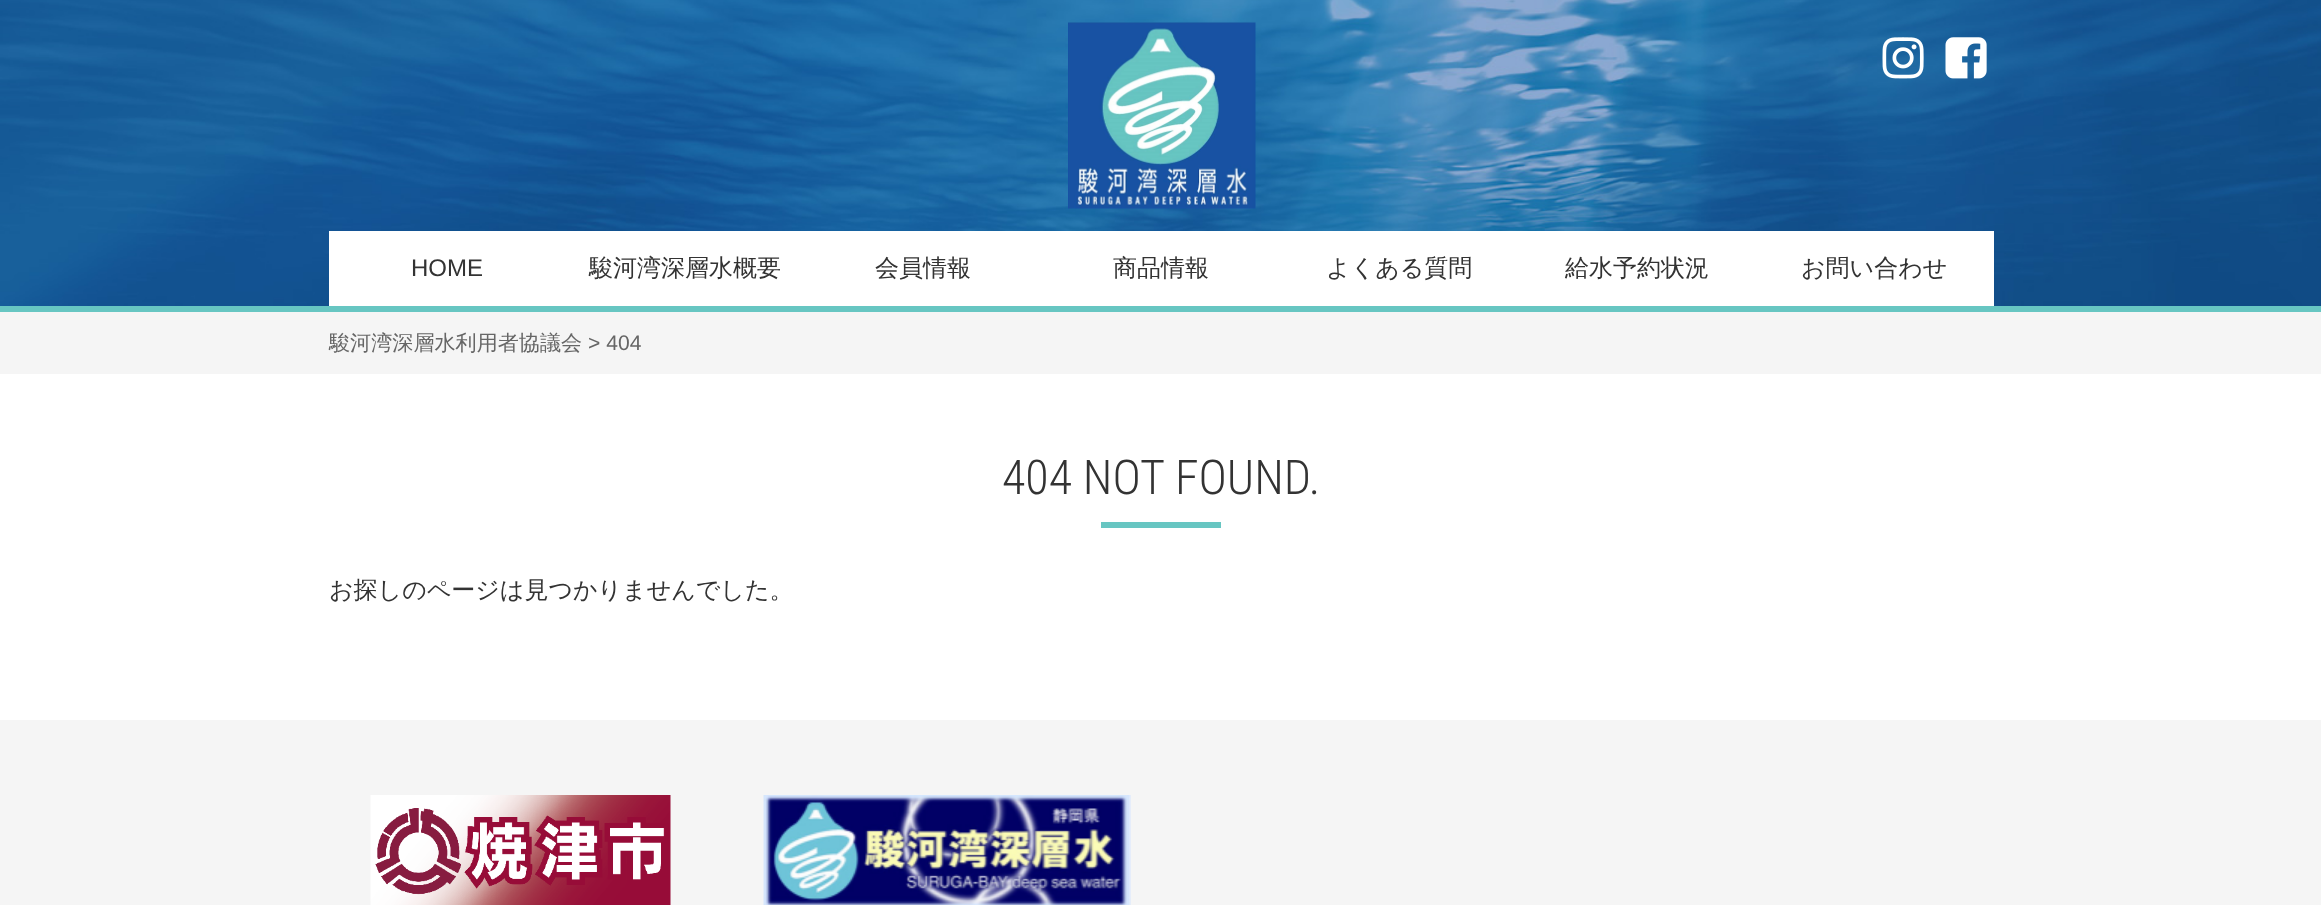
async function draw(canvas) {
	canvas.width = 2321;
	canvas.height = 905;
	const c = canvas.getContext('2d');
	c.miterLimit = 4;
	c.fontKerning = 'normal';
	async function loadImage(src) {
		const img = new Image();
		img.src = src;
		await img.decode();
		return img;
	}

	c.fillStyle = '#fff';
	c.fillRect(0, 0, 2321, 905);
	c.drawImage(await loadImage('img1.png'), 0, 0, 2321, 306);
	c.fillStyle = '#67c6c2';
	c.fillRect(0, 306, 2321, 6);
	c.drawImage(await loadImage('img2.png'), 1068, 22, 188, 187);
	c.drawImage(await loadImage('img3.png'), 1882, 37, 42, 42);
	c.drawImage(await loadImage('img4.png'), 1945, 37, 42, 42);
	c.fillStyle = '#fff';
	c.fillRect(329, 231, 1665, 75);
	c.font = '24px Liberation Sans';
	c.fillStyle = '#333';
	c.fillText('HOME', 411, 276);
	c.font = '500 24px WenQuanYi Zen Hei';
	for (const [text, x, y] of [
		['駿河湾深層水概要', 589, 276],
		['会員情報', 875, 276],
		['商品情報', 1113, 276],
		['よくある質問', 1326, 276],
		['給水予約状況', 1565, 276],
		['お問い合わせ', 1801, 276],
	]) {
		c.fillText(text, x, y);
	}
	c.fillStyle = '#f5f5f5';
	c.fillRect(0, 312, 2321, 62);
	c.font = '500 21.1px WenQuanYi Zen Hei';
	c.fillStyle = '#666';
	c.fillText('駿河湾深層水利用者協議会', 329, 350);
	c.font = '21.1px Liberation Sans';
	c.fillText('> 404', 588, 350);
	c.font = '300 48px Roboto Condensed';
	c.fillStyle = '#333';
	c.fillText('404 NOT FOUND.', 1002, 494);
	c.fillStyle = '#67c6c2';
	c.fillRect(1101, 522, 120, 6);
	c.font = '500 24px WenQuanYi Zen Hei';
	c.fillStyle = '#333';
	c.fillText('お探しのページは見つかりませんでした。', 329, 598);
	c.fillStyle = '#f5f5f5';
	c.fillRect(0, 720, 2321, 185);
	c.drawImage(await loadImage('img5.png'), 370, 795, 301, 110);
	c.drawImage(await loadImage('img6.png'), 763, 795, 368, 110);
}

draw(document.querySelector('canvas'));
